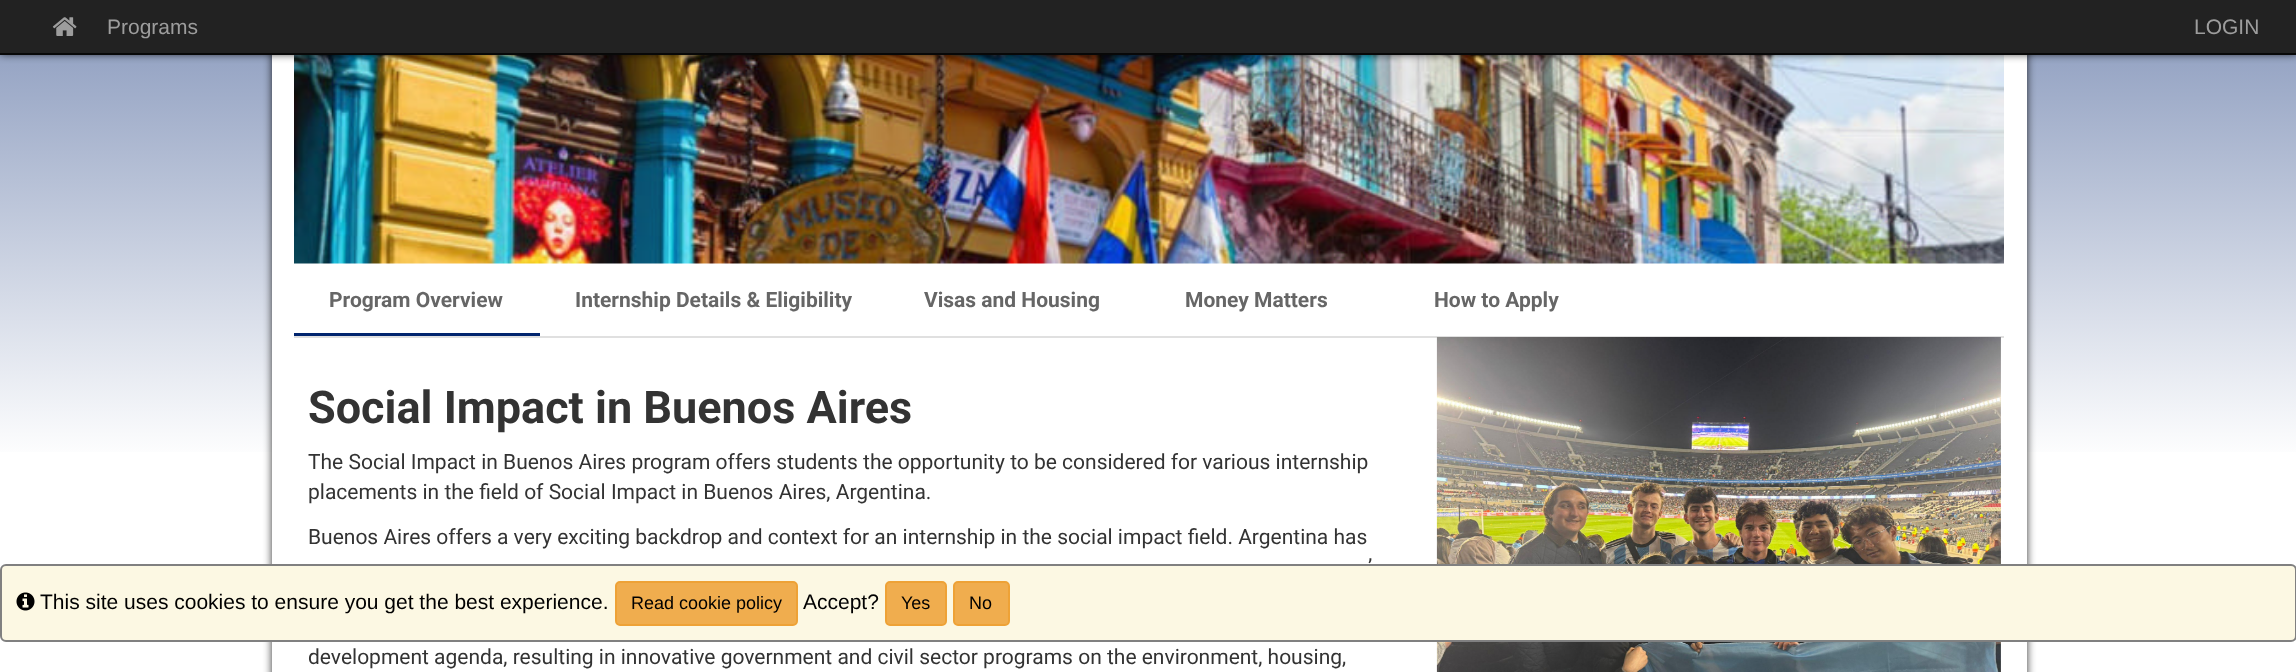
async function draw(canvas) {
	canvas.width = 2296;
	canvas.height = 672;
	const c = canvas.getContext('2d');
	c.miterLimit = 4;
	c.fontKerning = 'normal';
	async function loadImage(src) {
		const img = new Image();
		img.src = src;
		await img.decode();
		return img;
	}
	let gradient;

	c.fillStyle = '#fff';
	c.fillRect(0, 0, 2296, 672);
	gradient = c.createLinearGradient(1148, -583, 1148, 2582);
	gradient.addColorStop(0.02, '#012470');
	gradient.addColorStop(0.33, '#fff');
	c.fillStyle = gradient;
	c.fillRect(0, 55, 2296, 397);
	c.fillStyle = '#000000cc';
	c.filter = 'blur(4px)';
	c.beginPath();
	c.rect(272, -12, 1755, 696);
	c.fill();
	c.filter = 'none';
	c.fillStyle = '#fff';
	c.fillRect(272, 55, 1755, 617);
	c.drawImage(await loadImage('img2.png'), 294, 55, 1710, 209);
	c.fillStyle = '#000000cc';
	c.filter = 'blur(4px)';
	c.beginPath();
	c.rect(0, 0, 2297, 54);
	c.fill();
	c.filter = 'none';
	c.fillStyle = '#222';
	c.fillRect(0, 0, 2296, 53);
	c.fillStyle = '#080808';
	c.fillRect(0, 53, 2296, 2);
	c.drawImage(await loadImage('img1.png'), 52, 17, 25, 19);
	c.font = '21px Liberation Sans';
	c.fillStyle = '#9d9d9d';
	c.fillText('Programs', 107, 34);
	c.fillText('LOGIN', 2194, 34);
	c.fillStyle = '#e0e0e0';
	c.fillRect(294, 336, 1710, 2);
	c.font = 'bold 21px Roboto';
	c.fillStyle = '#666';
	for (const [text, x, y] of [
		['Program Overview', 329, 307],
		['Internship Details & Eligibility', 575, 307],
		['Visas and Housing', 924, 307],
		['Money Matters', 1185, 307],
		['How to Apply', 1434, 307],
	]) {
		c.fillText(text, x, y);
	}
	c.fillStyle = '#01256e';
	c.fillRect(294, 333, 246, 3);
	c.font = 'bold 45px Roboto';
	c.fillStyle = '#333';
	c.fillText('Social Impact in Buenos Aires', 308, 423);
	c.font = '21px Roboto';
	for (const [text, x, y] of [
		['The Social Impact in Buenos Aires program offers students the opportunity to be considered for various internship', 308, 469],
		['placements in the field of Social Impact in Buenos Aires, Argentina.', 308, 499],
		['Buenos Aires offers a very exciting backdrop and context for an internship in the social impact field. Argentina has', 308, 544],
		['’', 1368, 574],
		['development agenda, resulting in innovative government and civil sector programs on the environment, housing,', 308, 664],
	]) {
		c.fillText(text, x, y);
	}
	c.drawImage(await loadImage('img3.png'), 1436, 337, 565, 335);
	c.fillStyle = '#fcf8e3';
	c.beginPath();
	c.roundRect(1, 565, 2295, 76, 5);
	c.fill();
	c.strokeStyle = '#808080';
	c.lineWidth = 2;
	c.stroke();
	c.drawImage(await loadImage('img4.png'), 16, 592, 19, 19);
	c.font = '21px Liberation Sans';
	c.fillStyle = '#000';
	c.fillText('This site uses cookies to ensure you get the best experience.', 40, 609);
	c.fillStyle = '#f0ad4e';
	c.beginPath();
	c.roundRect(616, 582, 181, 43, 4);
	c.fill();
	c.strokeStyle = '#eea236';
	c.stroke();
	c.font = '18px Liberation Sans';
	c.fillStyle = '#000';
	c.fillText('Read cookie policy', 631, 609);
	c.font = '21px Liberation Sans';
	c.fillText('Accept?', 803, 609);
	c.fillStyle = '#f0ad4e';
	c.beginPath();
	c.roundRect(886, 582, 60, 43, 4);
	c.fill();
	c.stroke();
	c.font = '18px Liberation Sans';
	c.fillStyle = '#000';
	c.fillText('Yes', 901, 609);
	c.fillStyle = '#f0ad4e';
	c.beginPath();
	c.roundRect(954, 582, 55, 43, 4);
	c.fill();
	c.stroke();
	c.fillStyle = '#000';
	c.fillText('No', 969, 609);
}

draw(document.querySelector('canvas'));
